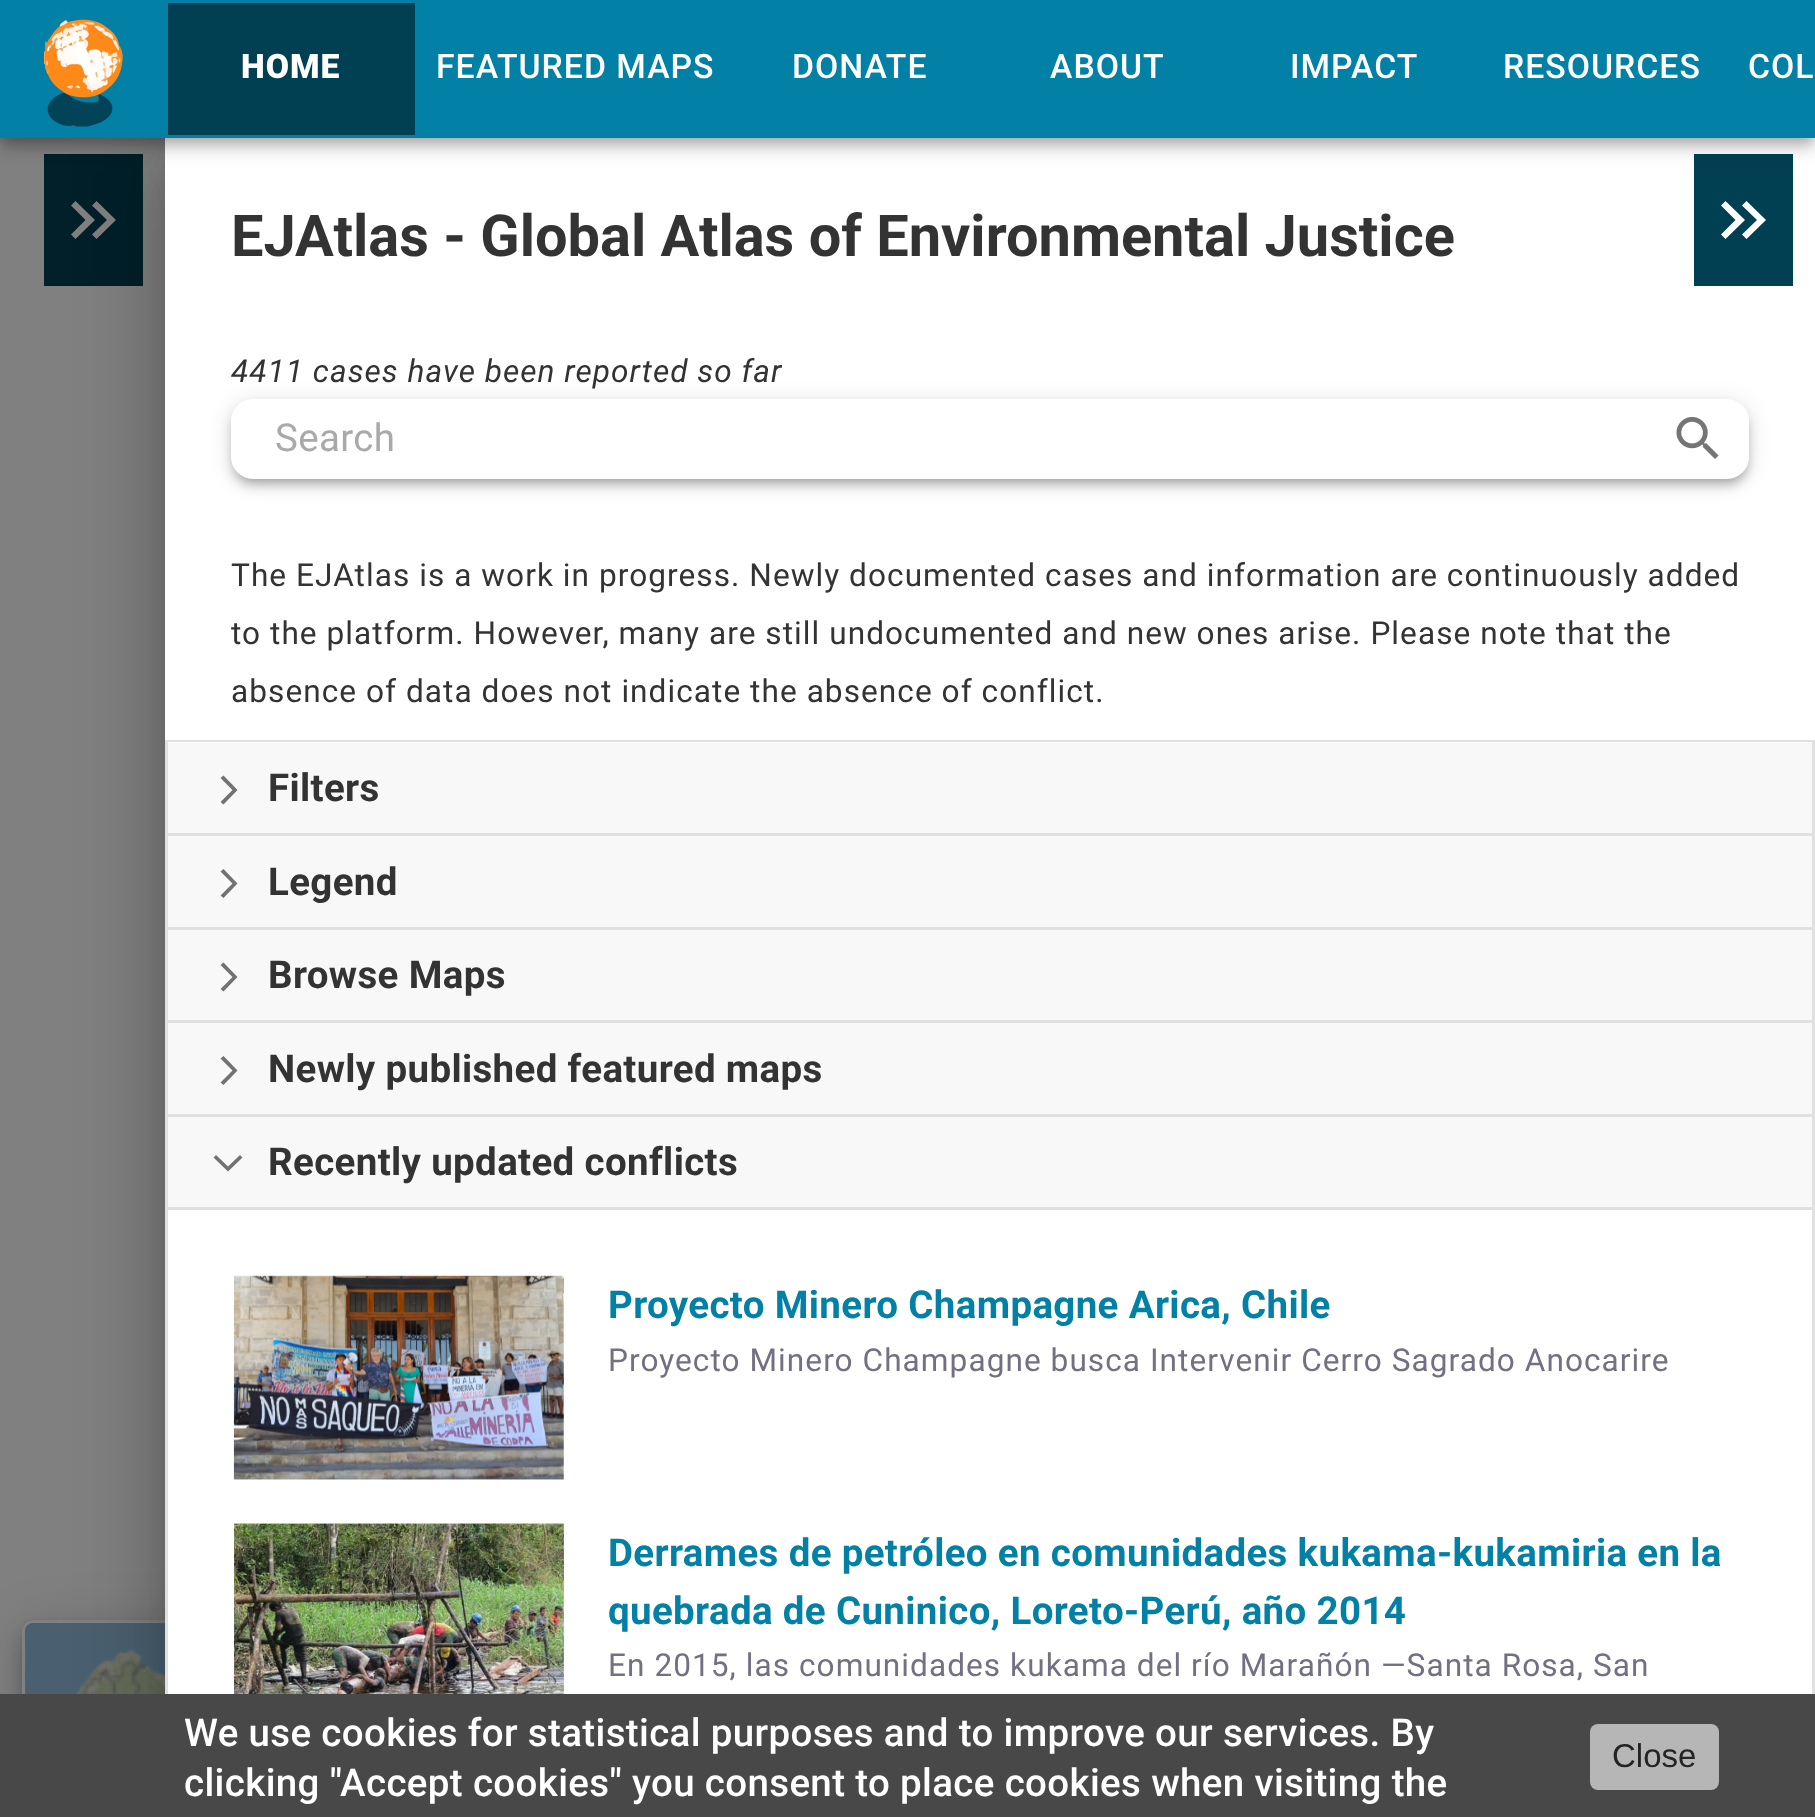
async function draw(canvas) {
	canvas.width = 1815;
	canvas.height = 1817;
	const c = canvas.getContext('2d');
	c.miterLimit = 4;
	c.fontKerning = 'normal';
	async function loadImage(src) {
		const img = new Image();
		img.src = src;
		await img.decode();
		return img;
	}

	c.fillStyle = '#808080';
	c.fillRect(0, 0, 1815, 1817);
	c.fillStyle = '#012029';
	c.fillRect(44, 154, 99, 132);
	c.fillStyle = '#0000001f';
	c.filter = 'blur(25px)';
	c.beginPath();
	c.roundRect(22, 1623, 264, 176, 11);
	c.fill();
	c.filter = 'none';
	c.fillStyle = '#00000024';
	c.filter = 'blur(14px)';
	c.beginPath();
	c.roundRect(22, 1636, 264, 176, 11);
	c.fill();
	c.filter = 'none';
	c.fillStyle = '#00000033';
	c.filter = 'blur(7px)';
	c.beginPath();
	c.roundRect(25, 1631, 258, 170, 8);
	c.fill();
	c.filter = 'none';
	c.drawImage(await loadImage('img2.png'), 22, 1619, 143, 75);
	c.beginPath();
	c.roundRect(23.5, 1621.5, 261, 173, 9.5);
	c.strokeStyle = '#808080';
	c.lineWidth = 3;
	c.stroke();
	c.fillStyle = '#808080';
	c.beginPath();
	c.moveTo(75.5, 201);
	c.lineTo(71, 205.5);
	c.lineTo(85.5, 220);
	c.lineTo(71, 234.5);
	c.lineTo(75.5, 239);
	c.lineTo(95, 220);
	c.closePath();
	c.fill();
	c.beginPath();
	c.moveTo(96.5, 201);
	c.lineTo(92, 205.5);
	c.lineTo(107, 220);
	c.lineTo(92, 234.5);
	c.lineTo(96.5, 239);
	c.lineTo(116, 220);
	c.closePath();
	c.fill();
	c.fillStyle = '#0000001f';
	c.filter = 'blur(41px)';
	c.beginPath();
	c.rect(151, 135, 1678, 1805);
	c.fill();
	c.filter = 'none';
	c.fillStyle = '#00000024';
	c.filter = 'blur(33px)';
	c.beginPath();
	c.rect(160, 171, 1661, 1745);
	c.fill();
	c.filter = 'none';
	c.fillStyle = '#00000033';
	c.filter = 'blur(14px)';
	c.beginPath();
	c.rect(179, 168, 1622, 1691);
	c.fill();
	c.filter = 'none';
	c.fillStyle = '#fff';
	c.fillRect(165, 138, 1650, 1556);
	c.fillStyle = '#014052';
	c.fillRect(1694, 154, 99, 132);
	c.fillStyle = '#0000001f';
	c.filter = 'blur(14px)';
	c.beginPath();
	c.rect(0, 3, 1815, 137);
	c.fill();
	c.filter = 'none';
	c.fillStyle = '#00000024';
	c.filter = 'blur(7px)';
	c.beginPath();
	c.rect(0, 11, 1815, 138);
	c.fill();
	c.filter = 'none';
	c.fillStyle = '#00000033';
	c.filter = 'blur(5.5px)';
	c.beginPath();
	c.rect(3, 8, 1809, 132);
	c.fill();
	c.filter = 'none';
	c.fillStyle = '#0380a5';
	c.fillRect(0, 0, 1815, 138);
	c.drawImage(await loadImage('img1.png'), 44, 11, 79, 116);
	c.fillStyle = '#014052';
	c.fillRect(168, 3, 247, 132);
	c.letterSpacing = '1px';
	c.font = '900 33.75px Roboto';
	c.fillStyle = '#fff';
	c.fillText('HOME', 241, 78);
	c.font = '500 33.75px Roboto';
	for (const [text, x, y] of [
		['FEATURED MAPS', 436, 78],
		['DONATE', 792, 78],
		['ABOUT', 1050, 78],
		['IMPACT', 1290, 78],
		['RESOURCES', 1503, 78],
		['COL', 1748, 78],
	]) {
		c.fillText(text, x, y);
	}
	c.strokeStyle = '#e0e0e0';
	c.strokeRect(166.5, 1115.5, 1647, 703);
	c.fillStyle = '#484848';
	c.fillRect(0, 1694, 1815, 123);
	c.letterSpacing = '0.35px';
	c.font = '500 38.5px Roboto';
	c.fillStyle = '#fff';
	c.fillText('We use cookies for statistical purposes and to improve our services. By', 184, 1746);
	c.fillText('clicking "Accept cookies" you consent to place cookies when visiting the', 184, 1796);
	c.fillStyle = '#b6b6b6';
	c.beginPath();
	c.roundRect(1590, 1724, 129, 66, 8);
	c.fill();
	c.letterSpacing = '0px';
	c.font = '33px Liberation Sans';
	c.fillStyle = '#242424';
	c.fillText('Close', 1612, 1767);
	c.font = 'bold 57.75px Roboto';
	c.fillStyle = '#333';
	c.fillText('EJAtlas - Global Atlas of Environmental Justice', 231, 256);
	c.letterSpacing = '1.05px';
	c.font = 'italic 31.6px Roboto';
	c.fillText('4411 cases have been reported so far', 231, 382);
	c.fillStyle = '#0000001f';
	c.filter = 'blur(11px)';
	c.beginPath();
	c.roundRect(231, 402, 1518, 79, 22);
	c.fill();
	c.filter = 'none';
	c.fillStyle = '#00000024';
	c.filter = 'blur(5.5px)';
	c.beginPath();
	c.roundRect(231, 407, 1518, 80, 22);
	c.fill();
	c.filter = 'none';
	c.fillStyle = '#00000033';
	c.filter = 'blur(4px)';
	c.beginPath();
	c.roundRect(237, 413, 1507, 68, 17);
	c.fill();
	c.filter = 'none';
	c.fillStyle = '#fff';
	c.beginPath();
	c.roundRect(231, 399, 1518, 80, 22);
	c.fill();
	c.letterSpacing = '0.35px';
	c.font = '38.5px Roboto';
	c.fillStyle = '#a9a9a9';
	c.fillText('Search', 275, 451);
	c.drawImage(await loadImage('img3.png'), 1676, 417, 43, 42);
	c.letterSpacing = '1.05px';
	c.font = '31.6px Roboto';
	c.fillStyle = '#333';
	for (const [text, x, y] of [
		['The EJAtlas is a work in progress. Newly documented cases and information are continuously added', 231, 586],
		['to the platform. However, many are still undocumented and new ones arise. Please note that the', 231, 644],
		['absence of data does not indicate the absence of conflict.', 231, 702],
	]) {
		c.fillText(text, x, y);
	}
	c.fillStyle = '#e0e0e0';
	c.beginPath();
	c.moveTo(165, 740);
	c.lineTo(1815, 740);
	c.lineTo(1812, 742);
	c.lineTo(168, 742);
	c.closePath();
	c.fill();
	c.fillStyle = '#0000001f';
	c.beginPath();
	c.moveTo(1815, 740);
	c.lineTo(1815, 833);
	c.lineTo(1812, 833);
	c.lineTo(1812, 742);
	c.closePath();
	c.fill();
	c.beginPath();
	c.moveTo(165, 833);
	c.lineTo(165, 740);
	c.lineTo(168, 742);
	c.lineTo(168, 833);
	c.closePath();
	c.fill();
	c.fillStyle = '#f8f8f8';
	c.fillRect(168, 743, 1644, 90);
	c.fillStyle = '#727272';
	c.beginPath();
	c.moveTo(220.5, 802);
	c.lineTo(223.5, 804.5);
	c.lineTo(237.5, 790);
	c.lineTo(223.5, 775.5);
	c.lineTo(220.5, 778);
	c.lineTo(232.5, 790);
	c.closePath();
	c.fill();
	c.letterSpacing = '0.35px';
	c.font = 'bold 38.5px Roboto';
	c.fillStyle = '#333';
	c.fillText('Filters', 268, 801);
	c.fillStyle = '#e0e0e0';
	c.beginPath();
	c.moveTo(165, 833);
	c.lineTo(1815, 833);
	c.lineTo(1812, 836);
	c.lineTo(168, 836);
	c.closePath();
	c.fill();
	c.fillStyle = '#0000001f';
	c.beginPath();
	c.moveTo(1815, 833);
	c.lineTo(1815, 927);
	c.lineTo(1812, 927);
	c.lineTo(1812, 836);
	c.closePath();
	c.fill();
	c.beginPath();
	c.moveTo(165, 927);
	c.lineTo(165, 833);
	c.lineTo(168, 836);
	c.lineTo(168, 927);
	c.closePath();
	c.fill();
	c.fillStyle = '#f8f8f8';
	c.fillRect(168, 836, 1644, 91);
	c.fillStyle = '#727272';
	c.beginPath();
	c.moveTo(220.5, 895.5);
	c.lineTo(223.5, 898);
	c.lineTo(237.5, 883.5);
	c.lineTo(223.5, 869);
	c.lineTo(220.5, 871.5);
	c.lineTo(232.5, 883.5);
	c.closePath();
	c.fill();
	c.fillStyle = '#333';
	c.fillText('Legend', 268, 895);
	c.fillStyle = '#e0e0e0';
	c.beginPath();
	c.moveTo(165, 927);
	c.lineTo(1815, 927);
	c.lineTo(1812, 930);
	c.lineTo(168, 930);
	c.closePath();
	c.fill();
	c.fillStyle = '#0000001f';
	c.beginPath();
	c.moveTo(1815, 927);
	c.lineTo(1815, 1020);
	c.lineTo(1812, 1020);
	c.lineTo(1812, 930);
	c.closePath();
	c.fill();
	c.beginPath();
	c.moveTo(165, 1020);
	c.lineTo(165, 927);
	c.lineTo(168, 930);
	c.lineTo(168, 1020);
	c.closePath();
	c.fill();
	c.fillStyle = '#f8f8f8';
	c.fillRect(168, 930, 1644, 90);
	c.fillStyle = '#727272';
	c.beginPath();
	c.moveTo(220.5, 989);
	c.lineTo(223.5, 991.5);
	c.lineTo(237.5, 977);
	c.lineTo(223.5, 962.5);
	c.lineTo(220.5, 965);
	c.lineTo(232.5, 977);
	c.closePath();
	c.fill();
	c.fillStyle = '#333';
	c.fillText('Browse Maps', 268, 988);
	c.fillStyle = '#e0e0e0';
	c.beginPath();
	c.moveTo(165, 1020);
	c.lineTo(1815, 1020);
	c.lineTo(1812, 1023);
	c.lineTo(168, 1023);
	c.closePath();
	c.fill();
	c.fillStyle = '#0000001f';
	c.beginPath();
	c.moveTo(1815, 1020);
	c.lineTo(1815, 1114);
	c.lineTo(1812, 1114);
	c.lineTo(1812, 1023);
	c.closePath();
	c.fill();
	c.beginPath();
	c.moveTo(165, 1114);
	c.lineTo(165, 1020);
	c.lineTo(168, 1023);
	c.lineTo(168, 1114);
	c.closePath();
	c.fill();
	c.fillStyle = '#f8f8f8';
	c.fillRect(168, 1023, 1644, 91);
	c.fillStyle = '#727272';
	c.beginPath();
	c.moveTo(220.5, 1082.5);
	c.lineTo(223.5, 1085);
	c.lineTo(237.5, 1070.5);
	c.lineTo(223.5, 1056);
	c.lineTo(220.5, 1058.5);
	c.lineTo(232.5, 1070.5);
	c.closePath();
	c.fill();
	c.fillStyle = '#333';
	c.fillText('Newly published featured maps', 268, 1082);
	c.fillStyle = '#f8f8f8';
	c.fillRect(168, 1117, 1644, 90);
	c.fillStyle = '#727272';
	c.beginPath();
	c.moveTo(216, 1155);
	c.lineTo(213.5, 1157.5);
	c.lineTo(228, 1171.5);
	c.lineTo(242.5, 1157.5);
	c.lineTo(240, 1155);
	c.lineTo(228, 1166.5);
	c.closePath();
	c.fill();
	c.fillStyle = '#333';
	c.fillText('Recently updated conflicts', 268, 1175);
	c.fillStyle = '#dfdfdf';
	c.fillRect(168, 1207, 1644, 3);
	c.drawImage(await loadImage('img4.png'), 233, 1275, 331, 205);
	c.fillStyle = '#0380a5';
	c.fillText('Proyecto Minero Champagne Arica, Chile', 608, 1318);
	c.letterSpacing = '1.05px';
	c.font = '31.6px Roboto';
	c.fillStyle = '#746f81';
	c.fillText('Proyecto Minero Champagne busca Intervenir Cerro Sagrado Anocarire', 608, 1371);
	c.drawImage(await loadImage('img5.png'), 234, 1523, 330, 171);
	c.letterSpacing = '0.35px';
	c.font = 'bold 38.5px Roboto';
	c.fillStyle = '#0380a5';
	c.fillText('Derrames de petróleo en comunidades kukama-kukamiria en la', 608, 1566);
	c.fillText('quebrada de Cuninico, Loreto-Perú, año 2014', 608, 1624);
	c.letterSpacing = '1.05px';
	c.font = '31.6px Roboto';
	c.fillStyle = '#746f81';
	c.fillText('En 2015, las comunidades kukama del río Marañón —Santa Rosa, San', 608, 1676);
	c.fillStyle = '#fff';
	c.beginPath();
	c.moveTo(1725.5, 201);
	c.lineTo(1721, 205.5);
	c.lineTo(1735.5, 220);
	c.lineTo(1721, 234.5);
	c.lineTo(1725.5, 239);
	c.lineTo(1745, 220);
	c.closePath();
	c.fill();
	c.beginPath();
	c.moveTo(1746.5, 201);
	c.lineTo(1742, 205.5);
	c.lineTo(1757, 220);
	c.lineTo(1742, 234.5);
	c.lineTo(1746.5, 239);
	c.lineTo(1766, 220);
	c.closePath();
	c.fill();
}

draw(document.querySelector('canvas'));
